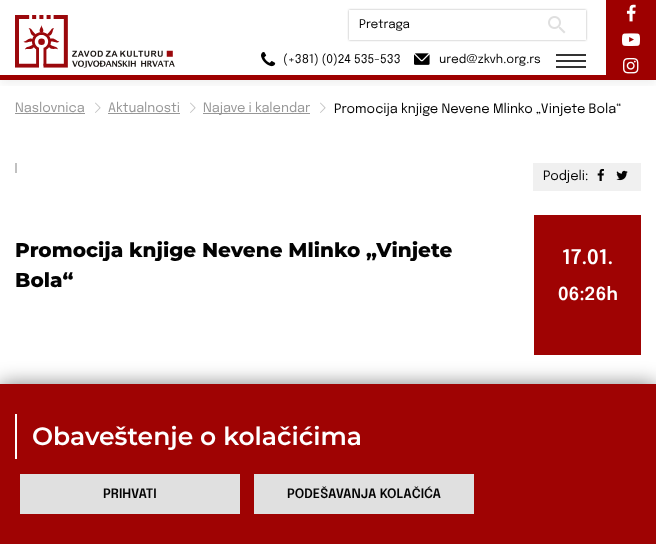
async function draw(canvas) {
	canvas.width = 656;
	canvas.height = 544;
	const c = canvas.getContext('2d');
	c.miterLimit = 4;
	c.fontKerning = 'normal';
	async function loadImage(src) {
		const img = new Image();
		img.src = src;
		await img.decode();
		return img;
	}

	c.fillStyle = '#fff';
	c.fillRect(0, 0, 656, 544);
	c.save();
	c.beginPath();
	c.rect(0, 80, 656, 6);
	c.clip();
	c.fillStyle = '#0000000f';
	c.filter = 'blur(5px)';
	c.beginPath();
	c.rect(0, 4, 656, 80);
	c.fill();
	c.filter = 'none';
	c.restore();
	c.fillStyle = '#9e0000';
	c.fillRect(0, 75, 606, 5);
	c.drawImage(await loadImage('img1.png'), 15, 15, 160, 53);
	c.save();
	c.beginPath();
	c.moveTo(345, 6);
	c.lineTo(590, 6);
	c.lineTo(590, 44);
	c.lineTo(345, 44);
	c.closePath();
	c.moveTo(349, 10);
	c.lineTo(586, 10);
	c.lineTo(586, 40);
	c.lineTo(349, 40);
	c.closePath();
	c.clip('evenodd');
	c.fillStyle = '#2b2b2b66';
	c.filter = 'blur(1px)';
	c.beginPath();
	c.rect(349, 10, 237, 30);
	c.fill();
	c.filter = 'none';
	c.restore();
	c.font = '12px Epilogue';
	c.fillStyle = '#030303';
	c.fillText('Pretraga', 359, 28);
	c.drawImage(await loadImage('img2.png'), 548, 16, 18, 18);
	c.drawImage(await loadImage('img3.png'), 261, 52, 15, 15);
	c.fillText('(+381) (0)24 535-533', 283, 63);
	c.drawImage(await loadImage('img4.png'), 414, 53, 16, 12);
	c.fillText('ured@zkvh.org.rs', 439, 63);
	for (const [x, y, w, h, color] of [
		[556, 60, 30, 2, '#333'],
		[556, 54, 30, 2, '#333'],
		[556, 66, 30, 2, '#333'],
		[606, 0, 50, 80, '#9e0000'],
	]) {
		c.fillStyle = color;
		c.fillRect(x, y, w, h);
	}
	c.drawImage(await loadImage('img5.png'), 626, 4, 10, 18);
	c.drawImage(await loadImage('img6.png'), 622, 33, 18, 13);
	c.drawImage(await loadImage('img7.png'), 623, 58, 16, 16);
	c.font = '13px Epilogue';
	c.fillStyle = '#979797';
	c.fillText('Naslovnica', 15, 112);
	c.fillRect(15, 113, 70, 1);
	c.drawImage(await loadImage('img8.png'), 95, 102, 6, 11);
	c.font = '13px "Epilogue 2"';
	c.fillText('A', 108, 112);
	c.fillRect(108, 113, 72, 1);
	c.font = '13px Epilogue';
	c.fillText('ktualnosti', 116, 112);
	c.drawImage(await loadImage('img8.png'), 190, 102, 6, 11);
	c.fillRect(203, 113, 107, 1);
	c.fillText('Najave i kalendar', 203, 112);
	c.drawImage(await loadImage('img8.png'), 320, 102, 6, 11);
	c.fillStyle = '#030303';
	c.fillText('Promocija knjige Nevene Mlinko „Vinjete Bola“', 334, 113);
	c.fillStyle = '#c1c1c1';
	c.fillRect(15, 163, 2, 10);
	c.fillStyle = '#f0f0f0';
	c.fillRect(533, 163, 108, 28);
	c.fillStyle = '#030303';
	c.fillText('Podjeli:', 543, 180);
	c.drawImage(await loadImage('img9.png'), 597, 168, 7, 13);
	c.drawImage(await loadImage('img10.png'), 616, 170, 12, 11);
	c.font = '800 20px Montserrat';
	c.fillText('Promocija knjige Nevene Mlinko „Vinjete', 15, 257);
	c.fillText('Bola“', 15, 287);
	c.fillStyle = '#9f0303';
	c.fillRect(534, 215, 107, 140);
	c.font = '600 20px Epilogue';
	c.fillStyle = '#fff';
	c.fillText('17.01.', 562, 264);
	c.font = '600 18px Epilogue';
	c.fillText('06:26h', 558, 300);
	c.fillStyle = '#03030380';
	c.filter = 'blur(10px)';
	c.beginPath();
	c.rect(0, 384, 656, 160);
	c.fill();
	c.filter = 'none';
	c.fillStyle = '#9f0303';
	c.fillRect(0, 384, 656, 160);
	c.fillStyle = '#fff';
	c.fillRect(15, 414, 2, 45);
	c.font = '600 25px Montserrat';
	c.fillText('Obaveštenje o kolačićima', 32, 445);
	c.fillStyle = '#e0e0e0';
	c.fillRect(20, 474, 220, 40);
	c.font = '600 13px Epilogue';
	c.fillStyle = '#030303';
	c.fillText('PRIHVATI', 103, 498);
	c.fillStyle = '#e0e0e0';
	c.fillRect(254, 474, 220, 40);
	c.fillStyle = '#030303';
	c.fillText('PODEŠAVANJA KOLAČIĆA', 287, 498);
}

draw(document.querySelector('canvas'));
